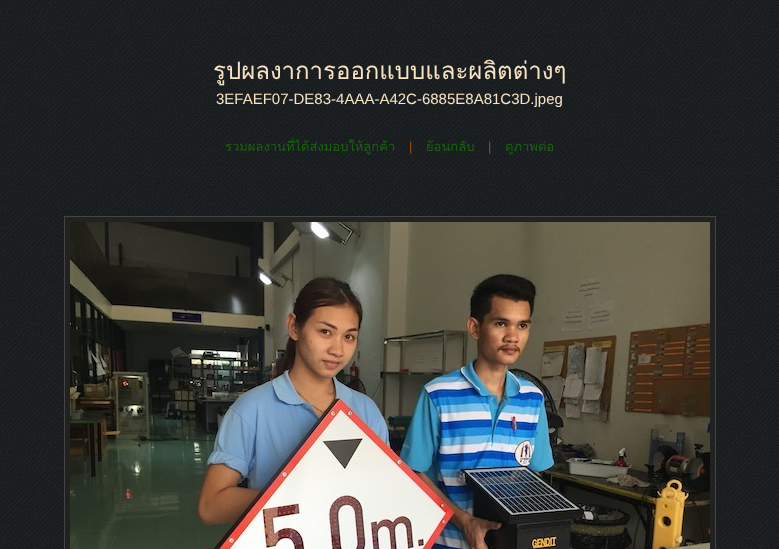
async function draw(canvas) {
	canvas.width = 779;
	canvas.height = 549;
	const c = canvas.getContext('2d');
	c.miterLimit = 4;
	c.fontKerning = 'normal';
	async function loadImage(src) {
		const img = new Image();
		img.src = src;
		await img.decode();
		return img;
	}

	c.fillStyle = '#fff';
	c.fillRect(0, 0, 779, 549);
	c.drawImage(await loadImage('img1.png'), 0, 0, 779, 549);
	c.font = '24px Loma';
	c.fillStyle = '#f8e3c2';
	c.fillText('รูปผลงาการออกแบบและผลิตต่างๆ', 213, 79);
	c.font = '15px Liberation Sans';
	c.fillText('3EFAEF07-DE83-4AAA-A42C-6885E8A81C3D.jpeg', 216, 104);
	c.font = '13px Loma';
	c.fillStyle = '#19630e';
	c.fillText('รวมผลงานที่ได้ส่งมอบให้ลูกค้า', 225, 151);
	c.font = '13px Liberation Sans';
	c.fillStyle = '#9f4c08';
	c.fillText('|', 409, 151);
	c.font = '13px Loma';
	c.fillStyle = '#19630e';
	c.fillText('ย้อนกลับ', 426, 151);
	c.font = '13px Liberation Sans';
	c.fillStyle = '#9f4c08';
	c.fillText('|', 488, 151);
	c.font = '13px Loma';
	c.fillStyle = '#19630e';
	c.fillText('ดูภาพต่อ', 505, 151);
	c.fillStyle = '#444';
	c.filter = 'blur(0.5px)';
	c.beginPath();
	c.rect(64, 216, 652, 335);
	c.fill();
	c.filter = 'none';
	c.strokeStyle = '#222';
	c.lineWidth = 5;
	c.strokeRect(67.5, 219.5, 645, 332);
	c.drawImage(await loadImage('img2.png'), 70, 222, 640, 327);
}

draw(document.querySelector('canvas'));
